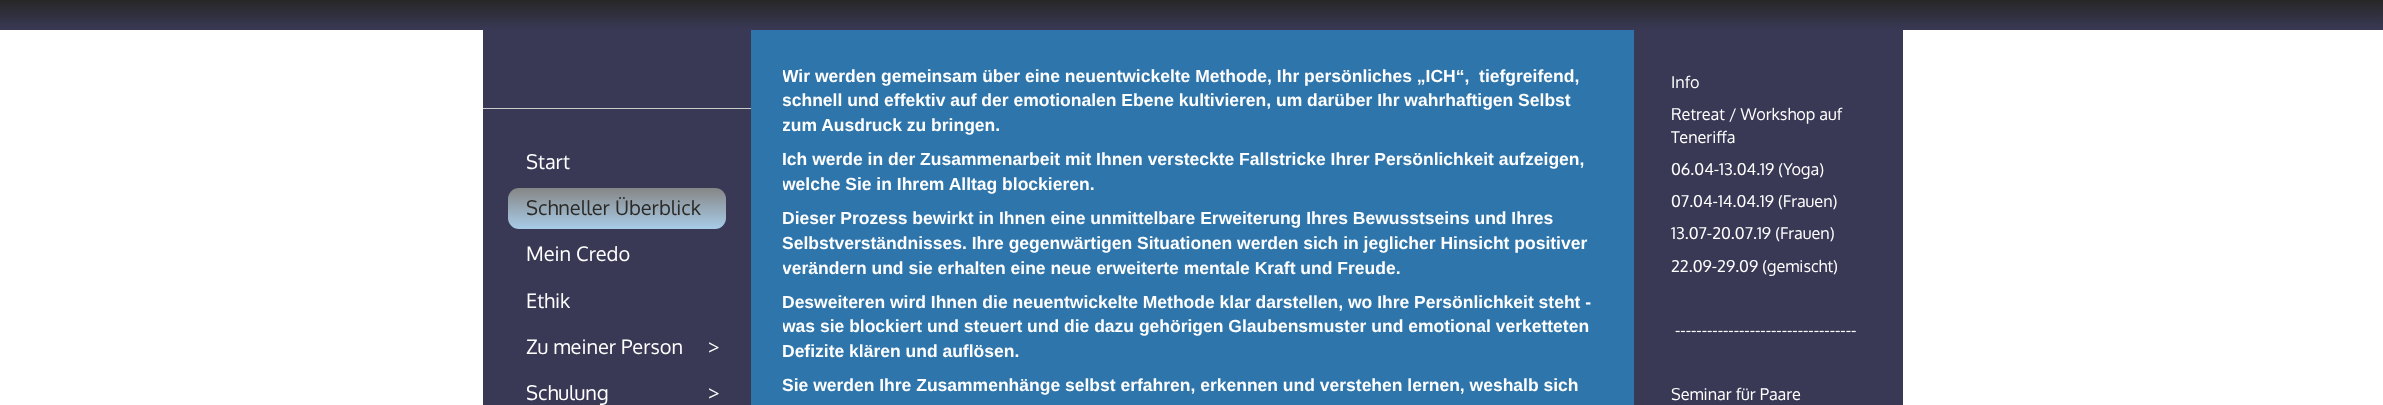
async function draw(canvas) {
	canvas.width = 2383;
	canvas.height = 405;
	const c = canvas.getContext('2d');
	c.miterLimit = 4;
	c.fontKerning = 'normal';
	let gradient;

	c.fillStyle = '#fff';
	c.fillRect(0, 0, 2383, 405);
	gradient = c.createLinearGradient(1192, 0, 1192, 30);
	gradient.addColorStop(0, '#272727');
	gradient.addColorStop(1, '#393956');
	c.fillStyle = gradient;
	c.fillRect(0, 0, 2383, 30);
	c.fillStyle = '#393956';
	c.fillRect(483, 30, 268, 375);
	c.fillStyle = '#ccc';
	c.fillRect(483, 108, 268, 1);
	c.font = '20px Oxygen';
	c.fillStyle = '#fff';
	c.fillText('Start', 526, 169);
	gradient = c.createLinearGradient(617, 188, 617, 229);
	gradient.addColorStop(0, '#868686');
	gradient.addColorStop(1, '#a8cce8');
	c.fillStyle = gradient;
	c.beginPath();
	c.roundRect(508, 188, 218, 41, 11);
	c.fill();
	c.fillStyle = '#2b2a27';
	c.fillText('Schneller Überblick', 526, 215);
	c.fillStyle = '#fff';
	for (const [text, x, y] of [
		['Mein Credo', 526, 261],
		['Ethik', 526, 308],
		['Zu meiner Person', 526, 354],
		['>', 708, 354],
		['Schulung', 526, 400],
		['>', 708, 400],
	]) {
		c.fillText(text, x, y);
	}
	c.fillStyle = '#2e75ab';
	c.fillRect(751, 30, 883, 375);
	c.save();
	c.beginPath();
	c.rect(783, 55, 820, 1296);
	c.clip();
	c.font = 'bold 17.5px Liberation Sans';
	c.fillStyle = '#fff';
	for (const [text, x, y] of [
		['Wir werden gemeinsam über eine neuentwickelte Methode, Ihr persönliches „ICH“,  tiefgreifend,', 782, 82],
		['schnell und effektiv auf der emotionalen Ebene kultivieren, um darüber Ihr wahrhaftigen Selbst', 782, 106],
		['zum Ausdruck zu bringen.', 782, 131],
	]) {
		c.fillText(text, x, y);
	}
	c.restore();
	c.font = 'bold 17.5px Liberation Sans';
	c.fillStyle = '#fff';
	c.fillText('Ich werde in der Zusammenarbeit mit Ihnen versteckte Fallstricke Ihrer Persönlichkeit aufzeigen,', 782, 165);
	c.save();
	c.beginPath();
	c.rect(783, 55, 820, 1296);
	c.clip();
	c.fillText('welche Sie in Ihrem Alltag blockieren.', 782, 190);
	c.restore();
	c.fillText('Dieser Prozess bewirkt in Ihnen eine unmittelbare Erweiterung Ihres Bewusstseins und Ihres', 782, 224);
	c.fillText('Selbstverständnisses. Ihre gegenwärtigen Situationen werden sich in jeglicher Hinsicht positiver', 782, 249);
	c.save();
	c.beginPath();
	c.rect(783, 55, 820, 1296);
	c.clip();
	c.fillText('verändern und sie erhalten eine neue erweiterte mentale Kraft und Freude.', 782, 274);
	c.restore();
	c.fillText('Desweiteren wird Ihnen die neuentwickelte Methode klar darstellen, wo Ihre Persönlichkeit steht -', 782, 308);
	c.save();
	c.beginPath();
	c.rect(783, 55, 820, 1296);
	c.clip();
	c.fillText('was sie blockiert und steuert und die dazu gehörigen Glaubensmuster und emotional verketteten', 782, 332);
	c.restore();
	c.fillText('Defizite klären und auflösen.', 782, 357);
	c.fillText('Sie werden Ihre Zusammenhänge selbst erfahren, erkennen und verstehen lernen, weshalb sich', 782, 391);
	c.fillStyle = '#393956';
	c.fillRect(1634, 30, 269, 375);
	c.font = '16.25px Oxygen';
	c.fillStyle = '#fff';
	for (const [text, x, y] of [
		['Info', 1671, 88],
		['Retreat / Workshop auf', 1671, 120],
		['Teneriffa', 1671, 143],
		['06.04-13.04.19 (Yoga)', 1671, 175],
		['07.04-14.04.19 (Frauen)', 1671, 207],
		['13.07-20.07.19 (Frauen)', 1671, 239],
		['22.09-29.09 (gemischt)', 1671, 272],
		['----------------------------------', 1675, 336],
		['Seminar für Paare', 1671, 400],
	]) {
		c.fillText(text, x, y);
	}
}

draw(document.querySelector('canvas'));
